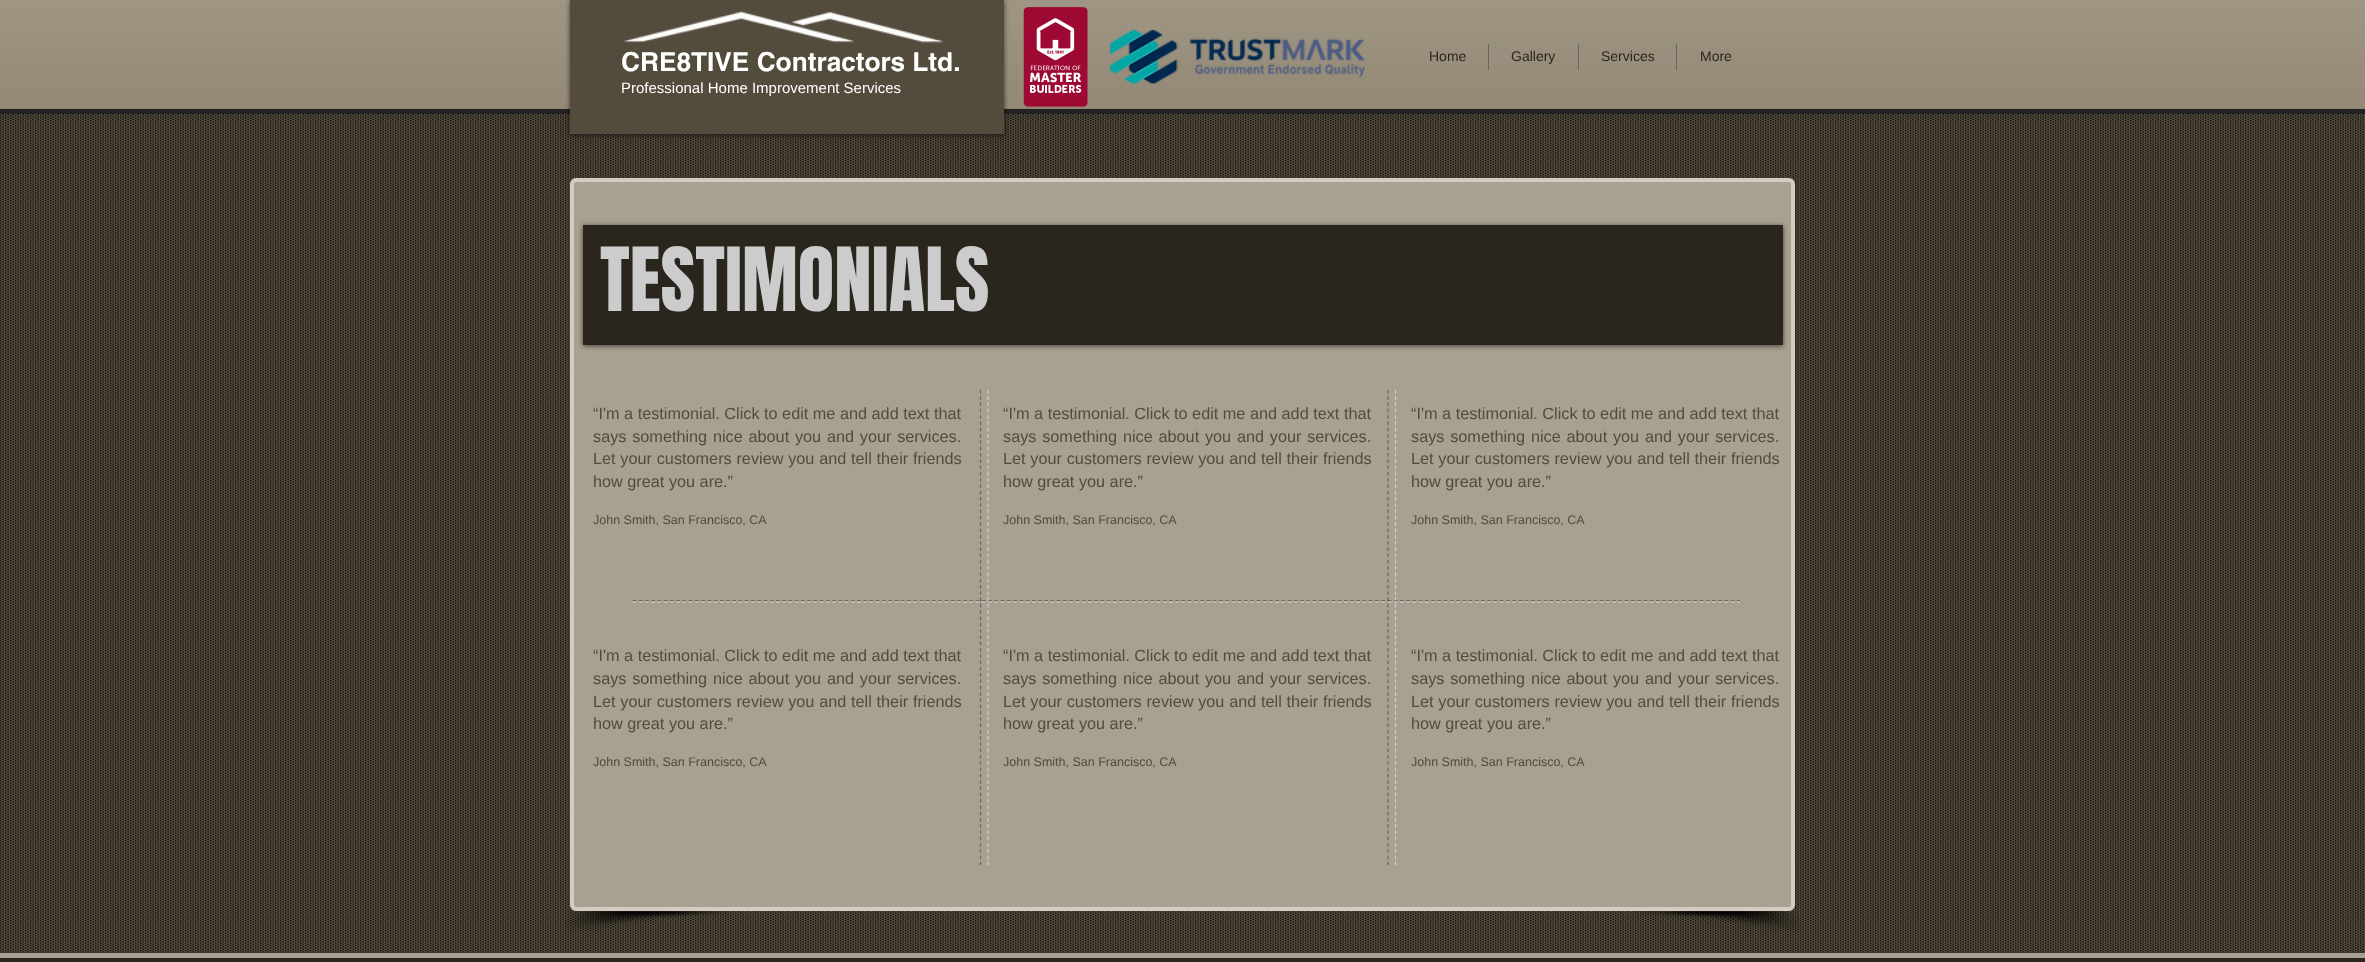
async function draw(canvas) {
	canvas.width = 2365;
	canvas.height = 962;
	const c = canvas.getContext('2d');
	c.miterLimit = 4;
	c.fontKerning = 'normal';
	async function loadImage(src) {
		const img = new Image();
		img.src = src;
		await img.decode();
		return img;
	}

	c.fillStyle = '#534b3b';
	c.fillRect(0, 0, 2365, 962);
	c.fillStyle = '#7d7159';
	c.fillRect(0, 0, 2365, 109);
	c.fillStyle = '#222';
	c.fillRect(0, 109, 2365, 5);
	c.drawImage(await loadImage('img2.png'), 0, 0, 2365, 109);
	c.drawImage(await loadImage('img7.png'), 0, 114, 2365, 839);
	c.fillStyle = '#00000099';
	c.filter = 'blur(2.5px)';
	c.beginPath();
	c.rect(570, 1, 434, 134);
	c.fill();
	c.filter = 'none';
	c.fillStyle = '#534b3b';
	c.fillRect(570, 0, 434, 134);
	c.drawImage(await loadImage('img1.png'), 623, 11, 320, 32);
	c.font = 'bold 26.25px helvetica';
	c.fillStyle = '#fff';
	c.fillText('CRE8TIVE Contractors Ltd.', 621, 71);
	c.font = '15px Liberation Sans';
	c.fillText('Professional Home Improvement Services', 621, 93);
	c.drawImage(await loadImage('img3.png'), 1023, 7, 65, 100);
	c.drawImage(await loadImage('img4.png'), 1110, 30, 255, 54);
	c.font = '14px Liberation Sans';
	c.fillStyle = '#2a261e';
	c.fillText('Home', 1429, 61);
	c.fillStyle = '#666';
	c.fillRect(1488, 44, 1, 26);
	c.fillStyle = '#2a261e';
	c.fillText('Gallery', 1511, 61);
	c.fillStyle = '#666';
	c.fillRect(1578, 44, 1, 26);
	c.fillStyle = '#2a261e';
	c.fillText('Services', 1601, 61);
	c.fillStyle = '#666';
	c.fillRect(1676, 44, 1, 26);
	c.fillStyle = '#2a261e';
	c.fillText('More', 1700, 61);
	c.fillStyle = '#a8a090';
	c.beginPath();
	c.roundRect(572, 180, 1221, 729, 4);
	c.fill();
	c.strokeStyle = '#d4cdbf';
	c.lineWidth = 4;
	c.stroke();
	c.drawImage(await loadImage('img5.png'), 565, 911, 165, 20);
	c.drawImage(await loadImage('img6.png'), 1634, 911, 166, 19);
	c.fillStyle = '#00000099';
	c.filter = 'blur(2.5px)';
	c.beginPath();
	c.rect(583, 226, 1200, 120);
	c.fill();
	c.filter = 'none';
	c.fillStyle = '#2a261e';
	c.fillRect(583, 225, 1200, 120);
	c.font = '75px Anton';
	c.fillStyle = '#ccc';
	c.fillText('TESTIMONIALS', 600, 311);
	c.font = '16.25px Liberation Sans';
	c.fillStyle = '#534b3b';
	c.fillText('“I\'m a testimonial. Click to edit me and add text that', 593, 419);
	c.wordSpacing = '1.25px';
	c.fillText('says something nice about you and your services.', 593, 442);
	c.wordSpacing = '0.25px';
	c.fillText('Let your customers review you and tell their friends', 593, 464);
	c.wordSpacing = '0px';
	c.fillText('how great you are.”', 593, 487);
	c.font = '12.5px Liberation Sans';
	c.fillText('John Smith, San Francisco, CA', 593, 524);
	c.beginPath();
	c.moveTo(988, 390);
	c.lineTo(988, 865);
	c.strokeStyle = '#d4d0c8';
	c.lineWidth = 1.2;
	c.setLineDash([3.75, 2.54]);
	c.stroke();
	c.beginPath();
	c.moveTo(980.5, 390);
	c.lineTo(980.5, 865);
	c.strokeStyle = '#6d685e';
	c.stroke();
	c.font = '16.25px Liberation Sans';
	c.fillText('“I\'m a testimonial. Click to edit me and add text that', 1003, 419);
	c.wordSpacing = '1.25px';
	c.fillText('says something nice about you and your services.', 1003, 442);
	c.wordSpacing = '0.25px';
	c.fillText('Let your customers review you and tell their friends', 1003, 464);
	c.wordSpacing = '0px';
	c.fillText('how great you are.”', 1003, 487);
	c.font = '12.5px Liberation Sans';
	c.fillText('John Smith, San Francisco, CA', 1003, 524);
	c.beginPath();
	c.moveTo(1395.5, 390);
	c.lineTo(1395.5, 865);
	c.strokeStyle = '#d4d0c8';
	c.stroke();
	c.beginPath();
	c.moveTo(1388, 390);
	c.lineTo(1388, 865);
	c.strokeStyle = '#6d685e';
	c.stroke();
	c.font = '16.25px Liberation Sans';
	c.fillText('“I\'m a testimonial. Click to edit me and add text that', 1411, 419);
	c.wordSpacing = '1.25px';
	c.fillText('says something nice about you and your services.', 1411, 442);
	c.wordSpacing = '0.25px';
	c.fillText('Let your customers review you and tell their friends', 1411, 464);
	c.wordSpacing = '0px';
	c.fillText('how great you are.”', 1411, 487);
	c.font = '12.5px Liberation Sans';
	c.fillText('John Smith, San Francisco, CA', 1411, 524);
	c.beginPath();
	c.moveTo(632.5, 600.5);
	c.lineTo(1740, 600.5);
	c.strokeStyle = '#00000059';
	c.setLineDash([3.75, 2.49]);
	c.stroke();
	c.beginPath();
	c.moveTo(632.5, 602);
	c.lineTo(1740, 602);
	c.strokeStyle = '#ffffff80';
	c.stroke();
	c.font = '16.25px Liberation Sans';
	c.fillText('“I\'m a testimonial. Click to edit me and add text that', 593, 661);
	c.wordSpacing = '1.25px';
	c.fillText('says something nice about you and your services.', 593, 684);
	c.wordSpacing = '0.25px';
	c.fillText('Let your customers review you and tell their friends', 593, 707);
	c.wordSpacing = '0px';
	c.fillText('how great you are.”', 593, 729);
	c.font = '12.5px Liberation Sans';
	c.fillText('John Smith, San Francisco, CA', 593, 766);
	c.font = '16.25px Liberation Sans';
	c.fillText('“I\'m a testimonial. Click to edit me and add text that', 1003, 661);
	c.wordSpacing = '1.25px';
	c.fillText('says something nice about you and your services.', 1003, 684);
	c.wordSpacing = '0.25px';
	c.fillText('Let your customers review you and tell their friends', 1003, 707);
	c.wordSpacing = '0px';
	c.fillText('how great you are.”', 1003, 729);
	c.font = '12.5px Liberation Sans';
	c.fillText('John Smith, San Francisco, CA', 1003, 766);
	c.font = '16.25px Liberation Sans';
	c.fillText('“I\'m a testimonial. Click to edit me and add text that', 1411, 661);
	c.wordSpacing = '1.25px';
	c.fillText('says something nice about you and your services.', 1411, 684);
	c.wordSpacing = '0.25px';
	c.fillText('Let your customers review you and tell their friends', 1411, 707);
	c.wordSpacing = '0px';
	c.fillText('how great you are.”', 1411, 729);
	c.font = '12.5px Liberation Sans';
	c.fillText('John Smith, San Francisco, CA', 1411, 766);
	c.fillStyle = '#2a261e';
	c.fillRect(0, 958, 2365, 4);
	c.fillStyle = '#a8a090';
	c.fillRect(0, 953, 2365, 5);
}

draw(document.querySelector('canvas'));
